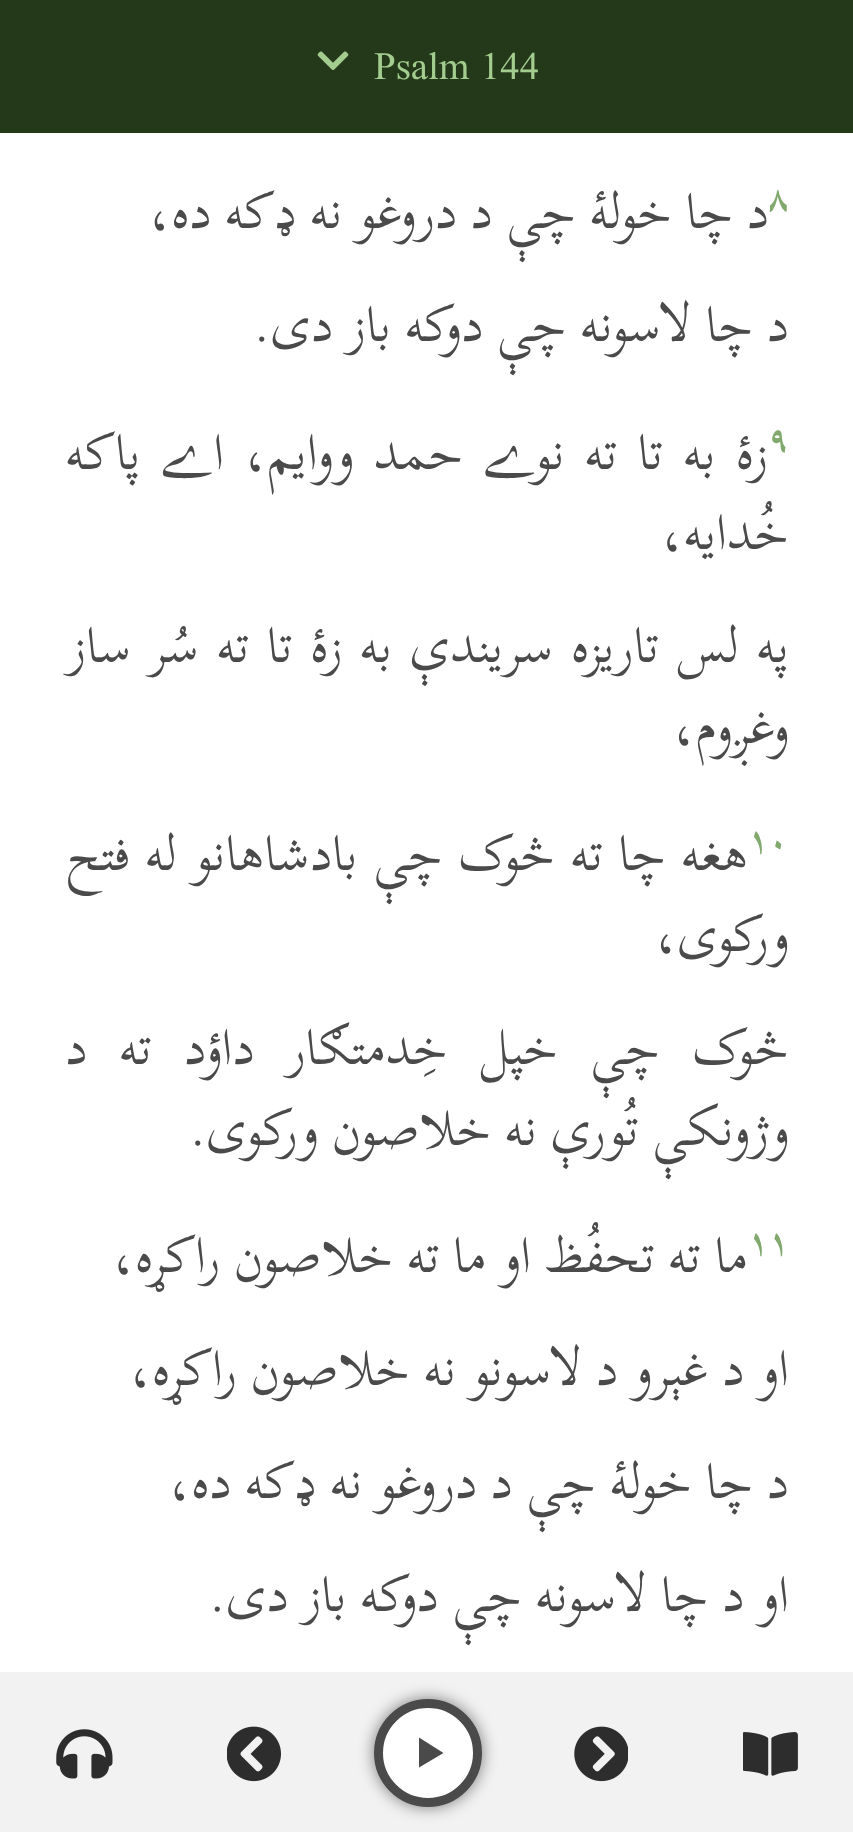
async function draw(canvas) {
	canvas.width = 853;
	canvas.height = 1832;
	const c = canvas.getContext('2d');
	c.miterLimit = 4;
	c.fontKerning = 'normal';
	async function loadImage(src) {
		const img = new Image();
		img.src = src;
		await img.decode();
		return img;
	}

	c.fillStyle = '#fff';
	c.fillRect(0, 0, 853, 1832);
	c.fillStyle = '#24381a';
	c.fillRect(0, 0, 853, 133);
	c.font = '43px Scheherazade New';
	c.fillStyle = '#a3cc8f';
	c.fillText('Psalm 144', 374, 79);
	c.drawImage(await loadImage('img1.png'), 317, 51, 32, 19);
	c.font = 'bold 35px Scheherazade New';
	c.fillStyle = '#81a86d';
	c.fillText('۸', 768, 209);
	c.direction = 'rtl';
	c.font = '50.4px Scheherazade New';
	c.fillStyle = '#4a4a4a';
	c.fillText('د چا خولۀ چې د دروغو نه ډکه ده،', 769, 228);
	c.fillText('د چا لاسونه چې دوکه باز دى.', 789, 341);
	c.direction = 'ltr';
	c.font = 'bold 35px Scheherazade New';
	c.fillStyle = '#81a86d';
	c.fillText('۹', 768, 449);
	c.wordSpacing = '6.5px';
	c.direction = 'rtl';
	c.font = '50.4px Scheherazade New';
	c.fillStyle = '#4a4a4a';
	c.fillText('زۀ به تا ته نوے حمد ووايم، اے پاکه', 768, 469);
	c.wordSpacing = '0px';
	c.fillText('خُدايه،', 789, 549);
	c.wordSpacing = '4px';
	c.fillText('په لس تاريزه سريندې به زۀ تا ته سُر ساز', 789, 662);
	c.wordSpacing = '0px';
	c.fillText('وغږوم،', 789, 743);
	c.direction = 'ltr';
	c.font = 'bold 35px Scheherazade New';
	c.fillStyle = '#81a86d';
	c.fillText('۱۰', 748, 851);
	c.wordSpacing = '1.75px';
	c.direction = 'rtl';
	c.font = '50.4px Scheherazade New';
	c.fillStyle = '#4a4a4a';
	c.fillText('هغه چا ته څوک چې بادشاهانو له فتح', 748, 870);
	c.wordSpacing = '0px';
	c.fillText('ورکوى،', 789, 951);
	c.wordSpacing = '18.5px';
	c.fillText('څوک چې خپل خِدمتګار داؤد ته د', 789, 1064);
	c.wordSpacing = '0px';
	c.fillText('وژونکې تُورې نه خلاصون ورکوى.', 789, 1145);
	c.direction = 'ltr';
	c.font = 'bold 35px Scheherazade New';
	c.fillStyle = '#81a86d';
	c.fillText('۱۱', 748, 1253);
	c.direction = 'rtl';
	c.font = '50.4px Scheherazade New';
	c.fillStyle = '#4a4a4a';
	for (const [text, x, y] of [
		['ما ته تحفُظ او ما ته خلاصون راکړه،', 748, 1272],
		['او د غېرو د لاسونو نه خلاصون راکړه،', 789, 1385],
		['د چا خولۀ چې د دروغو نه ډکه ده،', 789, 1498],
		['او د چا لاسونه چې دوکه باز دى.', 789, 1611],
	]) {
		c.fillText(text, x, y);
	}
	c.fillStyle = '#f2f2f2';
	c.fillRect(0, 1672, 853, 160);
	c.drawImage(await loadImage('img2.png'), 743, 1732, 55, 44);
	c.drawImage(await loadImage('img3.png'), 574, 1726, 54, 56);
	c.fillStyle = '#00000080';
	c.filter = 'blur(8px)';
	c.beginPath();
	c.roundRect(374, 1699, 108, 108, 54);
	c.fill();
	c.filter = 'none';
	c.fillStyle = '#fff';
	c.beginPath();
	c.arc(428, 1753, 49.5, 0, 2 * Math.PI);
	c.fill();
	c.strokeStyle = '#4a4a4a';
	c.lineWidth = 9;
	c.stroke();
	c.fillStyle = '#4a4a4a';
	c.beginPath();
	c.moveTo(419, 1737.5);
	c.lineTo(443.5, 1753);
	c.lineTo(419, 1767.5);
	c.closePath();
	c.fill();
	c.drawImage(await loadImage('img4.png'), 227, 1726, 54, 56);
	c.drawImage(await loadImage('img5.png'), 56, 1729, 57, 50);
}

draw(document.querySelector('canvas'));
